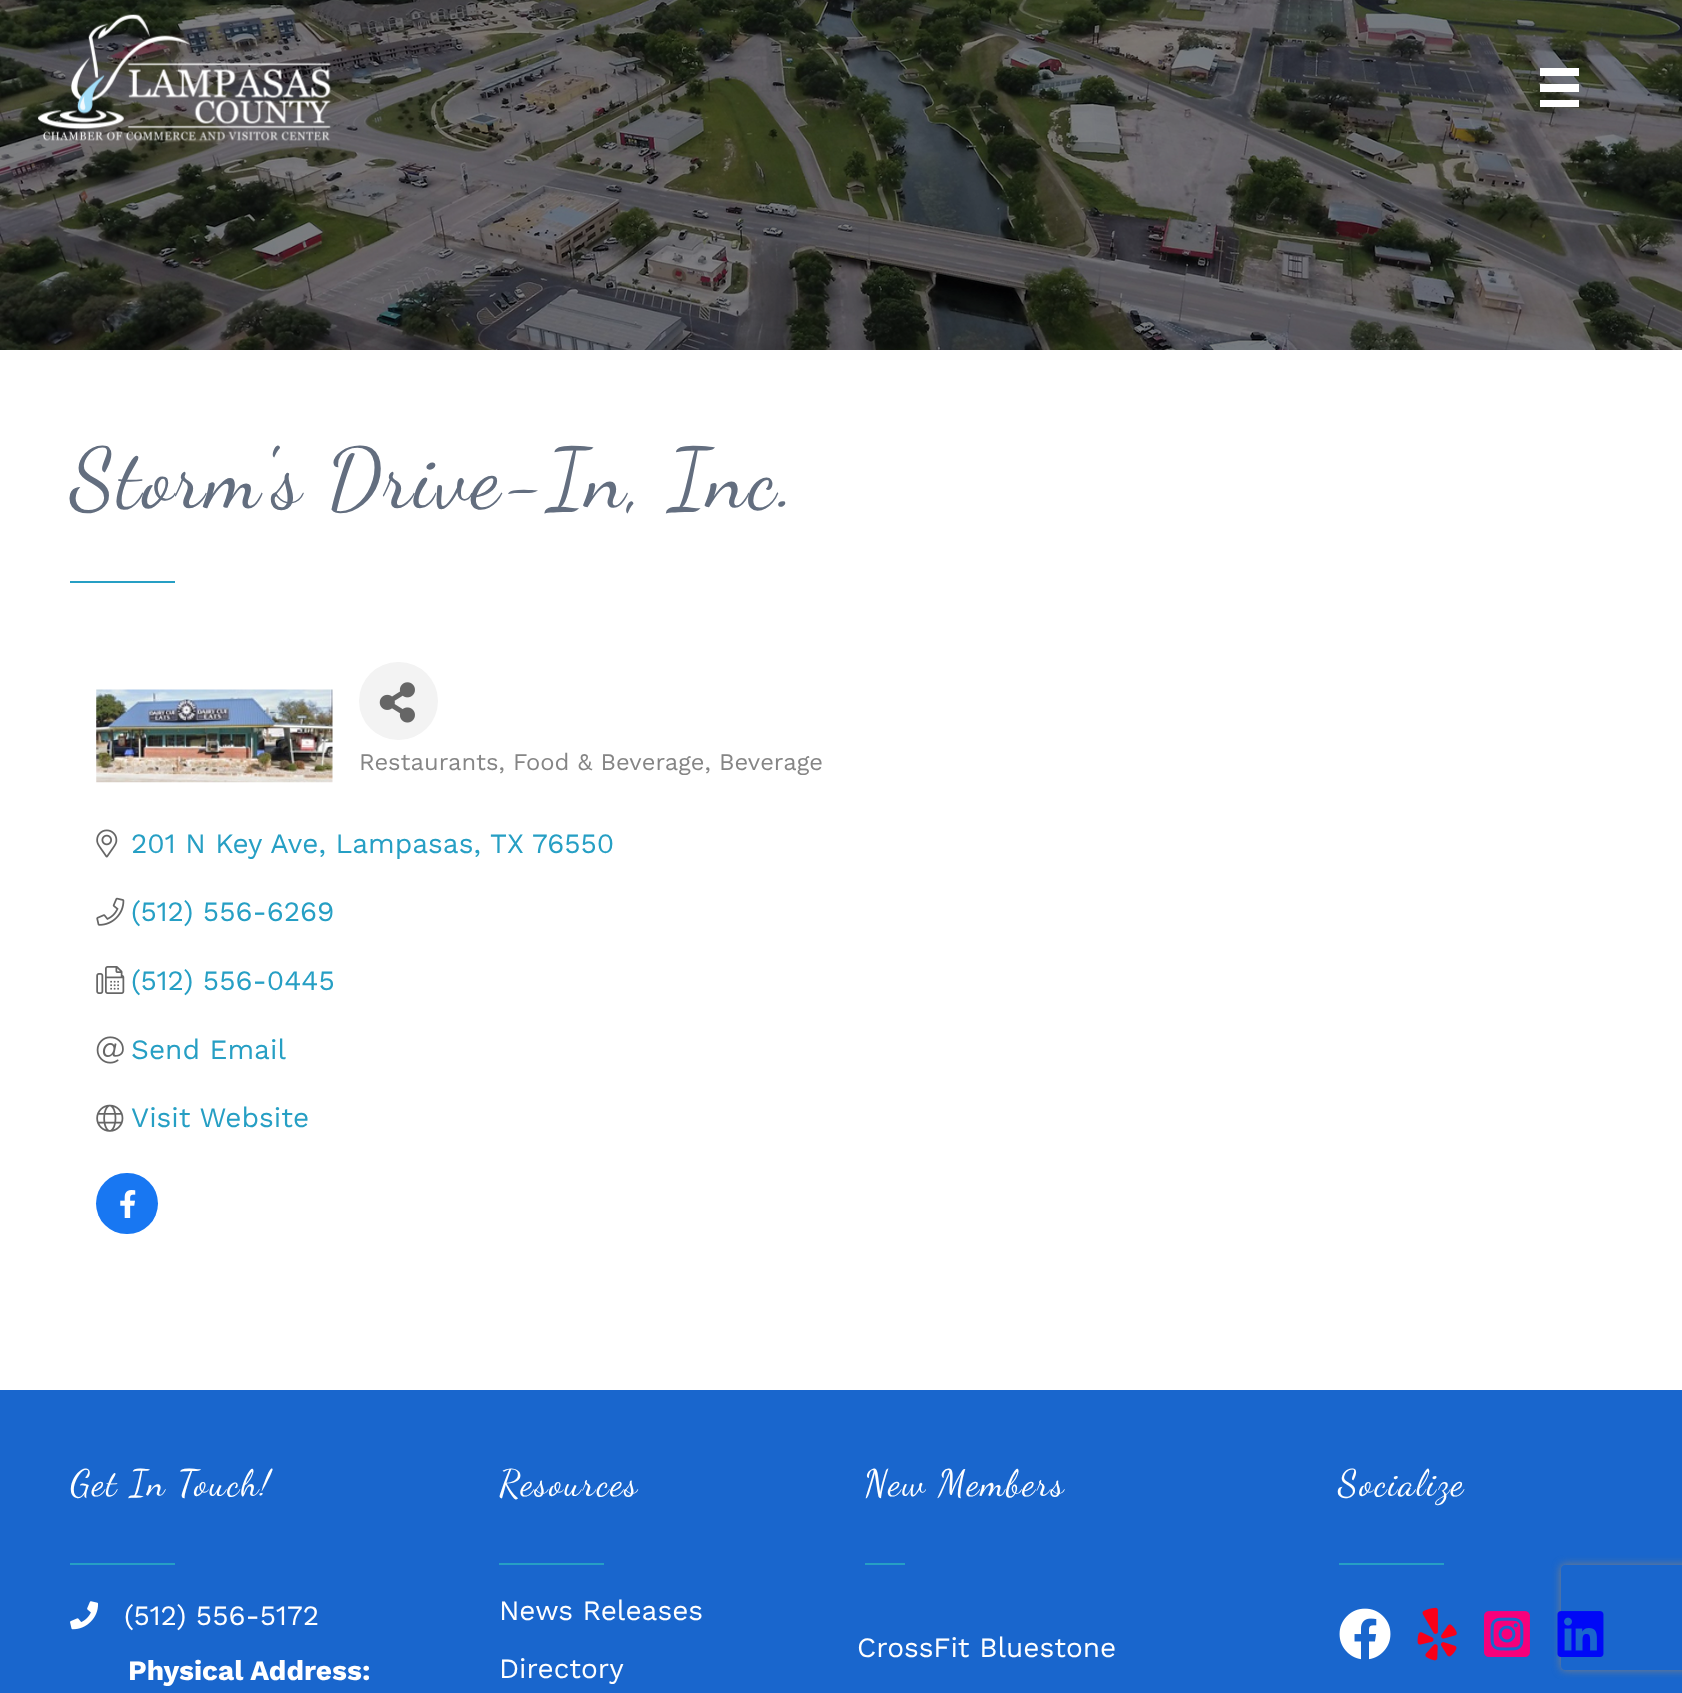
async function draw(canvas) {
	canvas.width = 1682;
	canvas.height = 1693;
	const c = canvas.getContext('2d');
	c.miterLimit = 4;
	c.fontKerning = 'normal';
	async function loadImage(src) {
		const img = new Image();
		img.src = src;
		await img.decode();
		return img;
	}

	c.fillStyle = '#fff';
	c.fillRect(0, 0, 1682, 1693);
	c.drawImage(await loadImage('img2.png'), 0, 0, 1682, 350);
	c.drawImage(await loadImage('img1.png'), 38, 14, 293, 127);
	for (const [x, y, w, h, color] of [
		[1540, 68, 39, 8, '#fff'],
		[1540, 84, 39, 8, '#fff'],
		[1540, 100, 39, 7, '#fff'],
	]) {
		c.fillStyle = color;
		c.fillRect(x, y, w, h);
	}
	c.letterSpacing = '1.75px';
	c.font = '84px Dancing Script';
	c.fillStyle = '#636e7f';
	c.fillText('Storm\'s Drive-In, Inc.', 70, 506);
	c.fillStyle = '#269fc4';
	c.fillRect(70, 581, 105, 2);
	c.drawImage(await loadImage('img3.png'), 96, 689, 237, 94);
	c.fillStyle = '#f3f3f3';
	c.beginPath();
	c.roundRect(359, 662, 79, 78, 39);
	c.fill();
	c.drawImage(await loadImage('img4.png'), 379, 682, 36, 41);
	c.letterSpacing = '0px';
	c.font = '23.75px Work Sans';
	c.fillStyle = '#858585';
	c.fillText('Restaurants, Food & Beverage, Beverage', 359, 770);
	c.drawImage(await loadImage('img5.png'), 96, 829, 22, 29);
	c.font = '28px Work Sans';
	c.fillStyle = '#269fc4';
	for (const [text, x, y] of [
		['201 N Key Ave, Lampasas,', 131, 853],
		['TX', 490, 853],
		['76550', 532, 853],
	]) {
		c.fillText(text, x, y);
	}
	c.drawImage(await loadImage('img6.png'), 96, 897, 29, 29);
	c.fillText('(512) 556-6269', 131, 921);
	c.drawImage(await loadImage('img7.png'), 96, 966, 29, 28);
	c.fillText('(512) 556-0445', 131, 990);
	c.drawImage(await loadImage('img8.png'), 96, 1036, 28, 28);
	c.fillText('Send Email', 131, 1059);
	c.drawImage(await loadImage('img9.png'), 96, 1104, 28, 28);
	c.fillText('Visit Website', 131, 1127);
	c.fillStyle = '#1877f2';
	c.beginPath();
	c.roundRect(96, 1173, 62, 61, 30.5);
	c.fill();
	c.drawImage(await loadImage('img10.png'), 120, 1190, 16, 28);
	c.fillStyle = '#1966cd';
	c.fillRect(0, 1390, 1682, 303);
	c.letterSpacing = '1.75px';
	c.font = '36.75px Dancing Script';
	c.fillStyle = '#fff';
	c.fillText('Get In Touch!', 70, 1495);
	c.fillStyle = '#269fc4';
	c.fillRect(70, 1563, 105, 2);
	c.drawImage(await loadImage('img11.png'), 70, 1601, 29, 29);
	c.letterSpacing = '0px';
	c.font = '28px Work Sans';
	c.fillStyle = '#fff';
	c.fillText('(512) 556-5172', 124, 1625);
	c.font = 'bold 28px Work Sans';
	c.fillText('Physical Address:', 128, 1680);
	c.letterSpacing = '1.75px';
	c.font = '36.75px Dancing Script';
	c.fillText('Resources', 499, 1495);
	c.fillStyle = '#269fc4';
	c.fillRect(499, 1563, 105, 2);
	c.letterSpacing = '0px';
	c.font = '28px Work Sans';
	c.fillStyle = '#fff';
	c.fillText('News Releases', 499, 1620);
	c.fillText('Directory', 499, 1678);
	c.letterSpacing = '1.75px';
	c.font = '36.75px Dancing Script';
	c.fillText('New Members', 864, 1495);
	c.fillStyle = '#269fc4';
	c.fillRect(865, 1563, 40, 2);
	c.letterSpacing = '0px';
	c.font = '28px Work Sans';
	c.fillStyle = '#fff';
	c.fillText('CrossFit Bluestone', 857, 1657);
	c.letterSpacing = '1.75px';
	c.font = '36.75px Dancing Script';
	c.fillText('Socialize', 1338, 1495);
	c.fillStyle = '#269fc4';
	c.fillRect(1339, 1563, 105, 2);
	c.drawImage(await loadImage('img12.png'), 1339, 1608, 52, 52);
	c.drawImage(await loadImage('img13.png'), 1417, 1607, 40, 54);
	c.drawImage(await loadImage('img14.png'), 1484, 1611, 46, 46);
	c.save();
	c.beginPath();
	c.moveTo(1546, 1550);
	c.lineTo(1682, 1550);
	c.lineTo(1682, 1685);
	c.lineTo(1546, 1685);
	c.closePath();
	c.moveTo(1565, 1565);
	c.lineTo(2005, 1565);
	c.bezierCurveTo(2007, 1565, 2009, 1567, 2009, 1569);
	c.lineTo(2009, 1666);
	c.bezierCurveTo(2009, 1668, 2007, 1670, 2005, 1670);
	c.lineTo(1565, 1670);
	c.bezierCurveTo(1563, 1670, 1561, 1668, 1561, 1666);
	c.lineTo(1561, 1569);
	c.bezierCurveTo(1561, 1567, 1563, 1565, 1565, 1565);
	c.closePath();
	c.clip('evenodd');
	c.fillStyle = '#808080';
	c.filter = 'blur(4.5px)';
	c.beginPath();
	c.roundRect(1561, 1565, 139, 105, 4);
	c.fill();
	c.filter = 'none';
	c.restore();
	c.drawImage(await loadImage('img15.png'), 1557, 1611, 47, 46);
}

draw(document.querySelector('canvas'));
